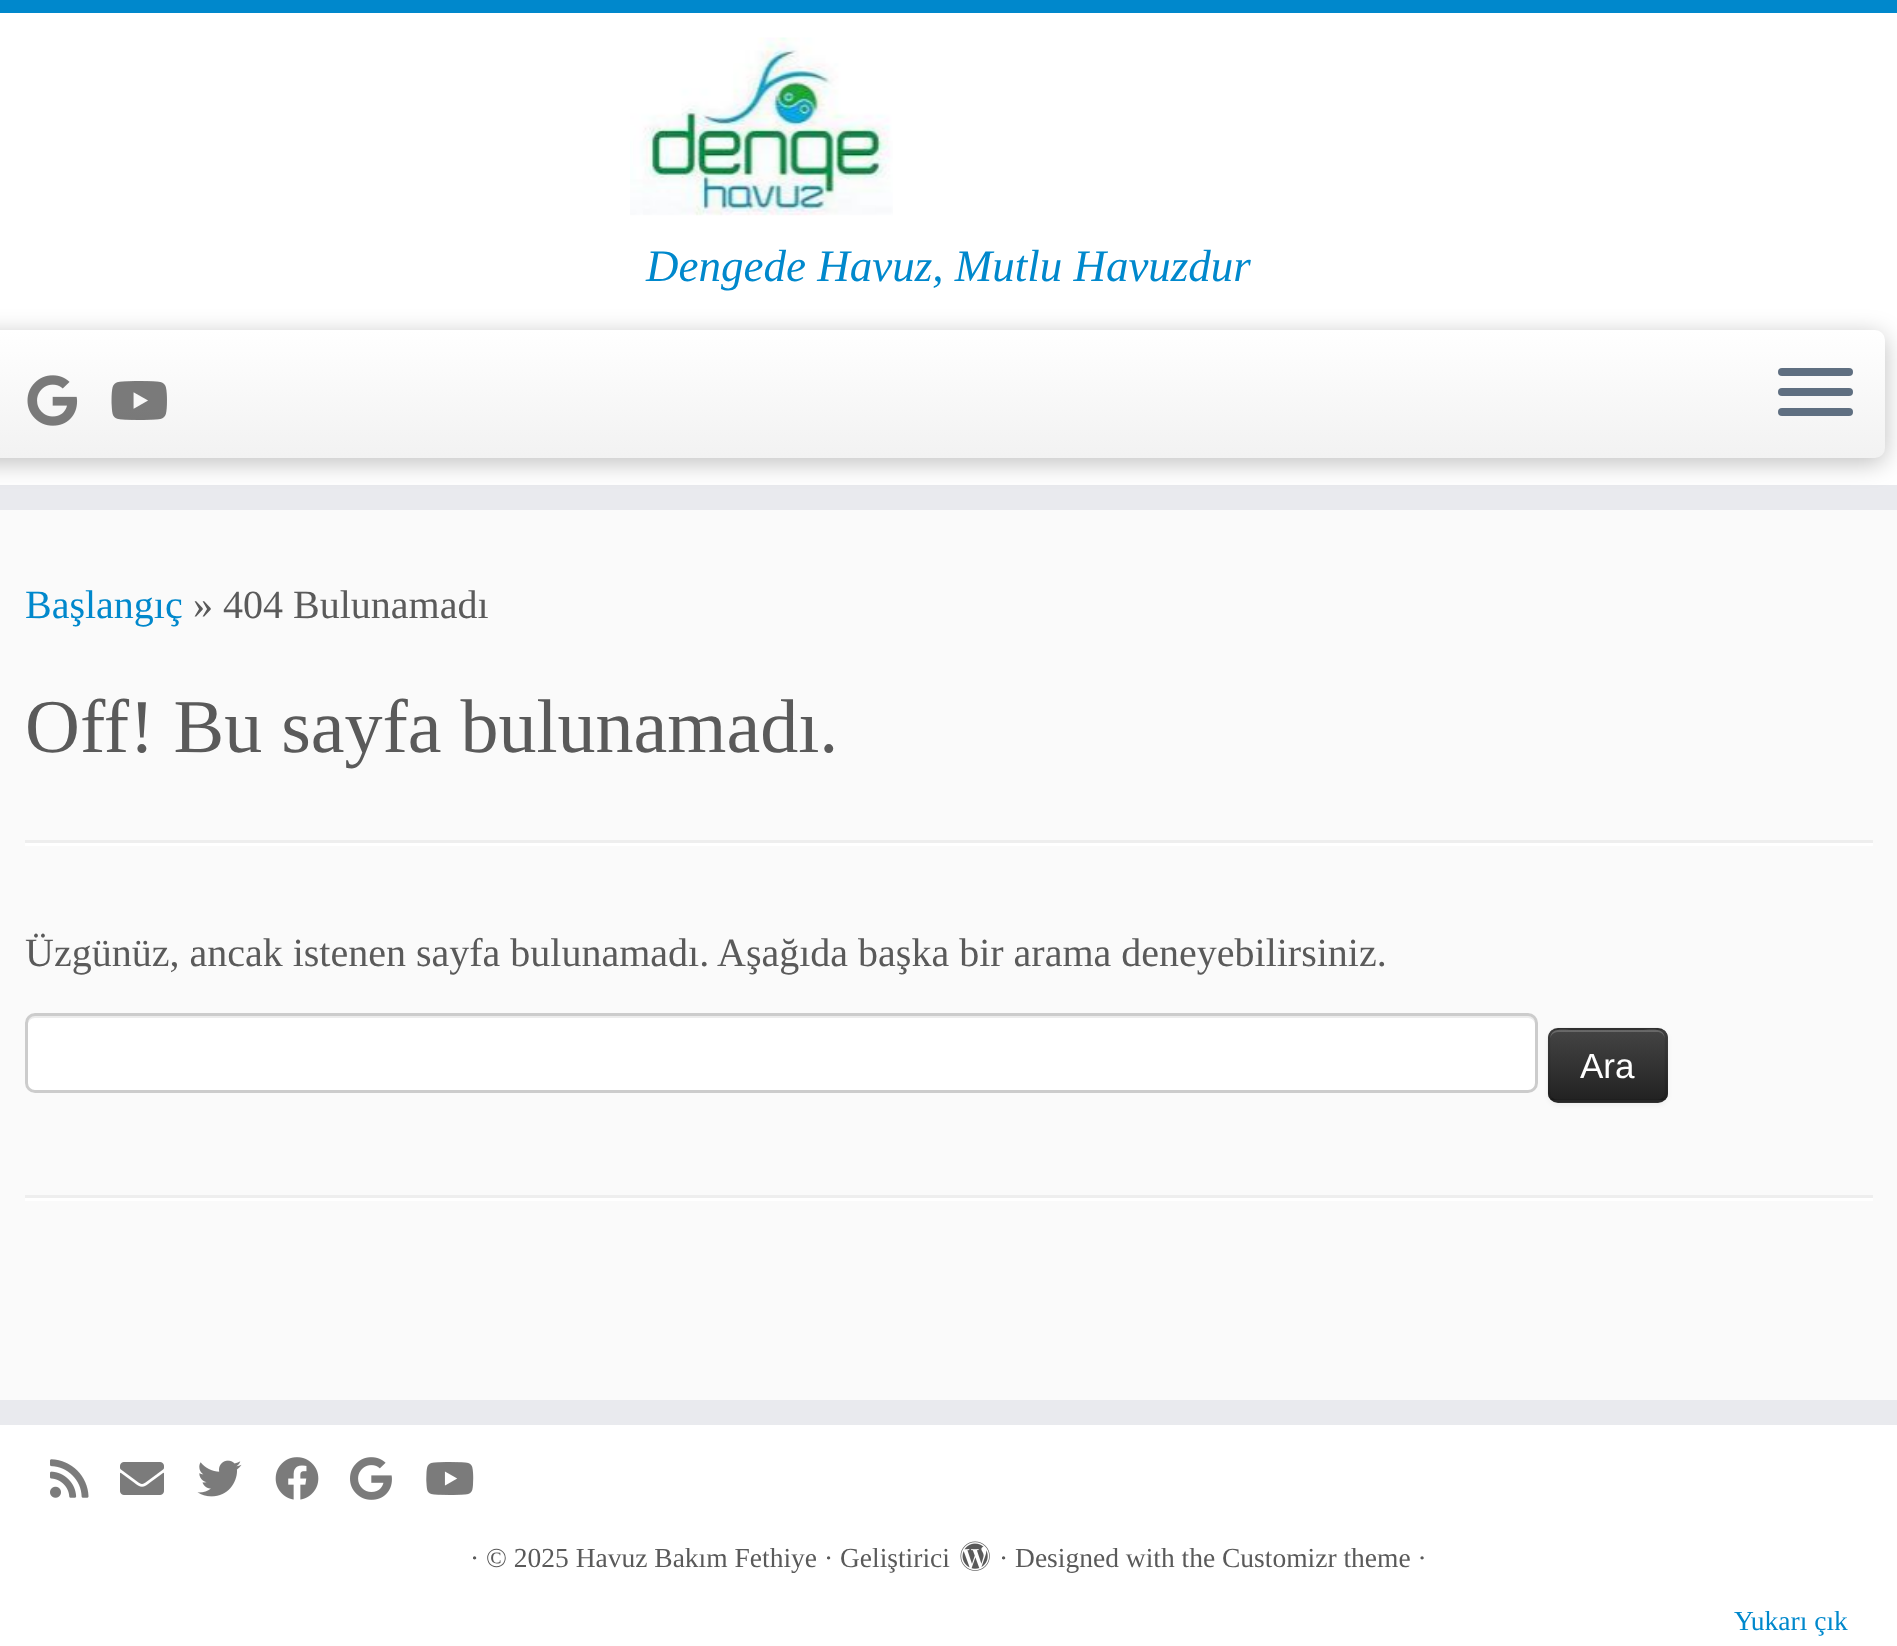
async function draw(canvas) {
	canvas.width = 1897;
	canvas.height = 1646;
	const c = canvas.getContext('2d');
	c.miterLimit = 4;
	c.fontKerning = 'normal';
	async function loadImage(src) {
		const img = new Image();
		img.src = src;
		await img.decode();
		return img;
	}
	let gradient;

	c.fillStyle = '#fafafa';
	c.fillRect(0, 0, 1897, 1646);
	for (const [x, y, w, h, color] of [
		[0, 13, 1897, 472, '#fff'],
		[0, 0, 1897, 13, '#08c'],
		[0, 485, 1897, 25, '#e9eaee'],
	]) {
		c.fillStyle = color;
		c.fillRect(x, y, w, h);
	}
	c.drawImage(await loadImage('img1.png'), 630, 37, 263, 179);
	c.font = 'italic 45px Liberation Serif';
	c.fillStyle = '#08c';
	c.fillText('Dengede Havuz, Mutlu Havuzdur', 646, 281);
	c.fillStyle = '#00000040';
	c.filter = 'blur(12.5px)';
	c.beginPath();
	c.roundRect(-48, 335, 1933, 128, 10);
	c.fill();
	c.filter = 'none';
	gradient = c.createLinearGradient(769, 330, 769, 458);
	gradient.addColorStop(0, '#fff');
	gradient.addColorStop(1, '#f2f2f2');
	c.fillStyle = gradient;
	c.beginPath();
	c.roundRect(-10, 330, 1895, 128, 10);
	c.fill();
	c.drawImage(await loadImage('img2.png'), 27, 375, 51, 51);
	c.drawImage(await loadImage('img3.png'), 111, 381, 56, 39);
	c.fillStyle = '#5f6f81';
	c.beginPath();
	c.roundRect(1778, 368, 75, 8, 4);
	c.fill();
	c.beginPath();
	c.roundRect(1778, 388, 75, 8, 4);
	c.fill();
	c.beginPath();
	c.roundRect(1778, 408, 75, 8, 4);
	c.fill();
	c.font = '40px Liberation Serif';
	c.fillStyle = '#08c';
	c.fillText('Başlangıç', 25, 618);
	c.fillStyle = '#5a5a5a';
	c.fillText('» 404 Bulunamadı', 193, 618);
	c.font = '76px Liberation Serif';
	c.fillText('Off! Bu sayfa bulunamadı.', 25, 752);
	c.fillStyle = '#eee';
	c.fillRect(25, 840, 1848, 3);
	c.fillStyle = '#fff';
	c.fillRect(25, 843, 1848, 3);
	c.font = '40px Liberation Serif';
	c.fillStyle = '#5a5a5a';
	c.fillText('Üzgünüz, ancak istenen sayfa bulunamadı. Aşağıda başka bir arama deneyebilirsiniz.', 25, 966);
	c.fillStyle = '#fff';
	c.beginPath();
	c.roundRect(25, 1013, 1513, 80, 10);
	c.fill();
	c.fillStyle = '#ececec';
	c.beginPath();
	c.moveTo(35, 1018);
	c.lineTo(1528, 1018);
	c.bezierCurveTo(1532, 1018, 1535, 1021, 1535, 1025);
	c.lineTo(1535, 1023);
	c.bezierCurveTo(1535, 1019, 1531, 1015, 1527, 1015);
	c.lineTo(36, 1015);
	c.bezierCurveTo(32, 1015, 28, 1019, 28, 1023);
	c.lineTo(28, 1025);
	c.bezierCurveTo(28, 1021, 31, 1018, 35, 1018);
	c.closePath();
	c.fill();
	c.beginPath();
	c.roundRect(26.5, 1014.5, 1510, 77, 8.5);
	c.strokeStyle = '#ccc';
	c.lineWidth = 3;
	c.stroke();
	c.fillStyle = '#0000000d';
	c.filter = 'blur(2.5px)';
	c.beginPath();
	c.roundRect(1548, 1030, 120, 75, 10);
	c.fill();
	c.filter = 'none';
	c.fillStyle = '#363636';
	c.beginPath();
	c.roundRect(1548, 1028, 120, 75, 10);
	c.fill();
	c.save();
	c.beginPath();
	c.roundRect(1548, 1028, 120, 75, 10);
	c.clip();
	gradient = c.createLinearGradient(1608, 1030, 1608, 1100);
	gradient.addColorStop(0, '#444');
	gradient.addColorStop(1, '#222');
	c.fillStyle = gradient;
	c.fillRect(1548, 1030, 120, 70);
	c.restore();
	c.fillStyle = '#ffffff33';
	c.beginPath();
	c.moveTo(1558, 1032);
	c.lineTo(1658, 1032);
	c.bezierCurveTo(1662, 1032, 1665, 1036, 1665, 1040);
	c.bezierCurveTo(1665, 1026, 1651, 1030, 1640, 1030);
	c.lineTo(1574, 1030);
	c.bezierCurveTo(1564, 1030, 1550, 1026, 1550, 1040);
	c.bezierCurveTo(1550, 1036, 1553, 1032, 1558, 1032);
	c.closePath();
	c.fill();
	c.beginPath();
	c.moveTo(1663.5, 1098.5);
	c.bezierCurveTo(1662, 1100.5, 1660, 1101, 1657.5, 1101);
	c.lineTo(1557.5, 1101);
	c.bezierCurveTo(1555, 1101, 1553, 1100.5, 1551.5, 1098.5);
	c.strokeStyle = '#00000040';
	c.lineWidth = 2.5;
	c.stroke();
	c.beginPath();
	c.moveTo(1551.5, 1098.5);
	c.bezierCurveTo(1549.5, 1097, 1549, 1095, 1549, 1092.5);
	c.lineTo(1549, 1037.5);
	c.bezierCurveTo(1549, 1035, 1549.5, 1033, 1551.5, 1031.5);
	c.bezierCurveTo(1553, 1029.5, 1555, 1029, 1557.5, 1029);
	c.lineTo(1657.5, 1029);
	c.bezierCurveTo(1660, 1029, 1662, 1029.5, 1663.5, 1031.5);
	c.bezierCurveTo(1665.5, 1033, 1666, 1035, 1666, 1037.5);
	c.lineTo(1666, 1092.5);
	c.bezierCurveTo(1666, 1095, 1665.5, 1097, 1663.5, 1098.5);
	c.strokeStyle = '#0000001a';
	c.stroke();
	c.font = '35px Liberation Sans';
	c.fillStyle = '#fff';
	c.fillText('Ara', 1580, 1078);
	for (const [x, y, w, h, color] of [
		[25, 1195, 1848, 3, '#eee'],
		[25, 1198, 1848, 3, '#fff'],
		[0, 1400, 1897, 25, '#e9eaee'],
		[0, 1425, 1897, 221, '#fff'],
	]) {
		c.fillStyle = color;
		c.fillRect(x, y, w, h);
	}
	c.drawImage(await loadImage('img4.png'), 50, 1459, 39, 39);
	c.drawImage(await loadImage('img5.png'), 120, 1462, 44, 33);
	c.drawImage(await loadImage('img6.png'), 197, 1460, 45, 37);
	c.drawImage(await loadImage('img7.png'), 275, 1457, 44, 43);
	c.drawImage(await loadImage('img8.png'), 350, 1457, 42, 43);
	c.drawImage(await loadImage('img9.png'), 426, 1462, 48, 33);
	c.font = '27.5px Liberation Serif';
	c.fillStyle = '#5a5a5a';
	c.fillText('· © 2025 Havuz Bakım Fethiye · Geliştirici', 470, 1567);
	c.drawImage(await loadImage('img10.png'), 960, 1541, 30, 30);
	c.fillText('· Designed with the Customizr theme ·', 999, 1567);
	c.fillStyle = '#08c';
	c.fillText('Yukarı çık', 1734, 1630);
}

draw(document.querySelector('canvas'));
